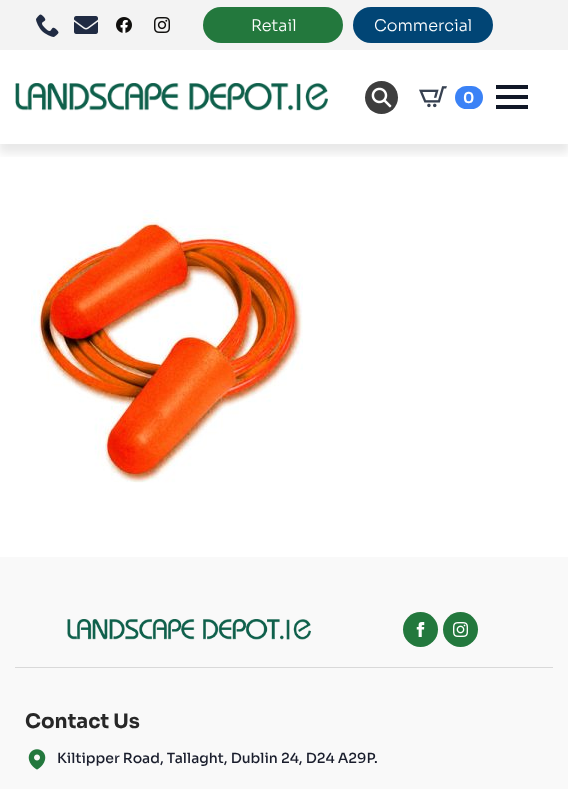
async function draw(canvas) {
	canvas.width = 568;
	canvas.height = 789;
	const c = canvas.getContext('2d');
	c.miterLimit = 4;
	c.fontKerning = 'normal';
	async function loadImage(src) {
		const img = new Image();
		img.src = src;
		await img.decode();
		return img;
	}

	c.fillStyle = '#fff';
	c.fillRect(0, 0, 568, 789);
	c.fillStyle = '#f3f3f3';
	c.fillRect(0, 0, 568, 50);
	c.drawImage(await loadImage('img1.png'), 36, 14, 23, 23);
	c.drawImage(await loadImage('img2.png'), 74, 16, 24, 18);
	c.drawImage(await loadImage('img3.png'), 116, 17, 16, 16);
	c.drawImage(await loadImage('img4.png'), 154, 17, 16, 16);
	c.fillStyle = '#23783d';
	c.beginPath();
	c.roundRect(203, 7, 140, 36, 18);
	c.fill();
	c.font = '300 16px Sora';
	c.fillStyle = '#fff';
	c.fillText('Retail', 251, 31);
	c.fillStyle = '#014575';
	c.beginPath();
	c.roundRect(353, 7, 140, 36, 18);
	c.fill();
	c.fillStyle = '#fff';
	c.fillText('Commercial', 374, 31);
	c.save();
	c.beginPath();
	c.rect(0, 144, 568, 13);
	c.clip();
	c.fillStyle = '#00000017';
	c.filter = 'blur(5px)';
	c.beginPath();
	c.rect(-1, 57, 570, 96);
	c.fill();
	c.filter = 'none';
	c.restore();
	c.drawImage(await loadImage('img5.png'), 15, 83, 313, 28);
	c.fillStyle = '#3e3e3e';
	c.beginPath();
	c.arc(381.5, 97.5, 16.5, 0, 2 * Math.PI);
	c.fill();
	c.drawImage(await loadImage('img6.png'), 371, 87, 21, 21);
	c.drawImage(await loadImage('img7.png'), 419, 86, 28, 22);
	c.fillStyle = '#3b82f6';
	c.beginPath();
	c.roundRect(455, 86, 28, 23, 11.5);
	c.fill();
	c.font = '600 15px Sora';
	c.fillStyle = '#fff';
	c.fillText('0', 463, 103);
	for (const [x, y, w, h, color] of [
		[496, 95, 32, 4, '#111827'],
		[496, 85, 32, 4, '#111827'],
		[496, 105, 32, 4, '#111827'],
	]) {
		c.fillStyle = color;
		c.fillRect(x, y, w, h);
	}
	c.drawImage(await loadImage('img8.png'), 31, 210, 272, 273);
	c.fillStyle = '#f9f9f9';
	c.fillRect(0, 557, 568, 232);
	c.drawImage(await loadImage('img9.png'), 67, 619, 244, 21);
	c.fillStyle = '#23783d';
	c.beginPath();
	c.arc(420.5, 629.5, 17.5, 0, 2 * Math.PI);
	c.fill();
	c.drawImage(await loadImage('img10.png'), 416, 622, 9, 15);
	c.beginPath();
	c.arc(460.5, 629.5, 17.5, 0, 2 * Math.PI);
	c.fill();
	c.drawImage(await loadImage('img11.png'), 453, 622, 15, 15);
	c.fillStyle = '#d9d9d9';
	c.fillRect(15, 667, 538, 1);
	c.font = 'bold 20px Sora';
	c.fillStyle = '#282828';
	c.fillText('Contact Us', 25, 728);
	c.drawImage(await loadImage('img12.png'), 28, 749, 18, 21);
	c.font = '500 14px Sora';
	c.fillStyle = '#191d2c';
	c.fillText('Kiltipper Road, Tallaght, Dublin 24, D24 A29P.', 57, 763);
}

draw(document.querySelector('canvas'));
